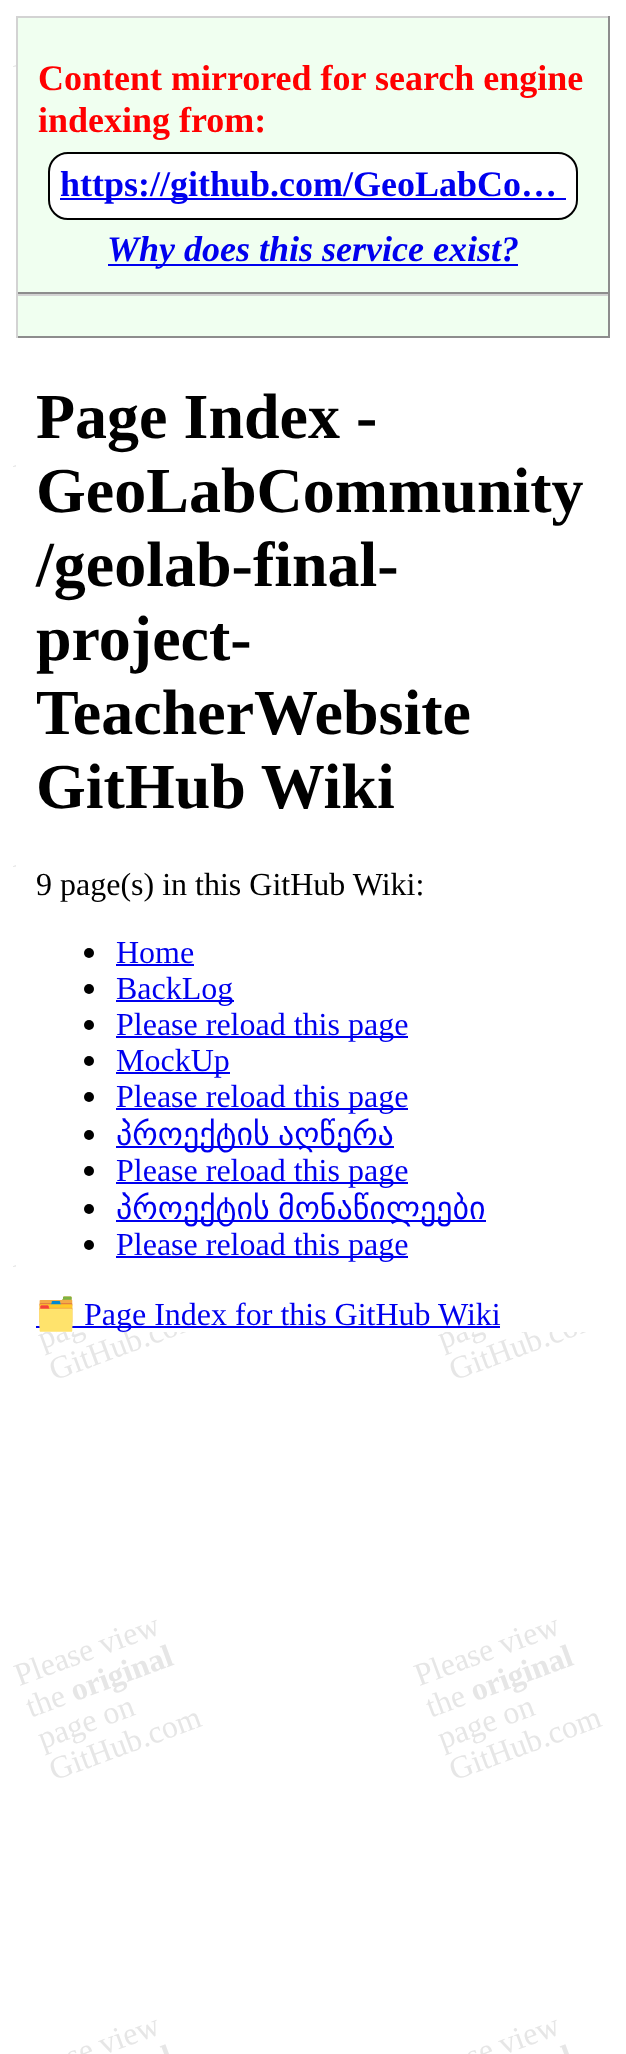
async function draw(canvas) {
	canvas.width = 626;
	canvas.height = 2054;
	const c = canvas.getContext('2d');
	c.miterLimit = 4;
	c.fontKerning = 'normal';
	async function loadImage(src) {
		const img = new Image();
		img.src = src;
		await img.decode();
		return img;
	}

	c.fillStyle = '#fff';
	c.fillRect(0, 0, 626, 2054);
	c.drawImage(await loadImage('img1.png'), 13, 65, 590, 1989);
	for (const [x, y, w, h, color] of [
		[16, 419, 587, 913, '#fff'],
		[18, 18, 590, 274, '#f0fff0'],
		[16, 16, 594, 2, '#d3d3d3'],
		[608, 16, 2, 278, '#8d8d8d'],
		[16, 292, 594, 2, '#8d8d8d'],
		[16, 16, 2, 278, '#d3d3d3'],
	]) {
		c.fillStyle = color;
		c.fillRect(x, y, w, h);
	}
	c.font = 'bold 36px Liberation Serif';
	c.fillStyle = '#f00';
	c.fillText('Content mirrored for search engine', 38, 90);
	c.fillText('indexing from:', 38, 132);
	c.fillStyle = '#fff';
	c.beginPath();
	c.roundRect(49, 153, 528, 66, 19);
	c.fill();
	c.strokeStyle = '#000';
	c.lineWidth = 2;
	c.stroke();
	c.fillStyle = '#00e';
	c.fillRect(60, 198, 506, 2);
	c.fillText('https://github.com/GeoLabCo…', 60, 196);
	c.fillRect(108, 264, 410, 2);
	c.font = 'italic bold 36px Liberation Serif';
	c.fillText('Why does this service exist?', 107, 261);
	for (const [x, y, w, h, color] of [
		[18, 296, 590, 40, '#f0fff0'],
		[16, 294, 594, 2, '#d3d3d3'],
		[608, 294, 2, 44, '#8d8d8d'],
		[16, 336, 594, 2, '#8d8d8d'],
		[16, 294, 2, 44, '#d3d3d3'],
	]) {
		c.fillStyle = color;
		c.fillRect(x, y, w, h);
	}
	c.font = 'bold 64px Liberation Serif';
	c.fillStyle = '#000';
	for (const [text, x, y] of [
		['Page Index -', 36, 438],
		['GeoLabCommunity', 36, 512],
		['/geolab-final-', 36, 586],
		['project-', 36, 660],
		['TeacherWebsite', 36, 734],
		['GitHub Wiki', 36, 808],
	]) {
		c.fillText(text, x, y);
	}
	c.font = '32px Liberation Serif';
	c.fillText('9 page(s) in this GitHub Wiki:', 36, 895);
	c.beginPath();
	c.arc(89, 953, 5, 0, 2 * Math.PI);
	c.fill();
	c.fillStyle = '#00e';
	c.fillText('Home', 116, 963);
	c.fillRect(116, 964, 78, 2);
	c.fillStyle = '#000';
	c.beginPath();
	c.arc(89, 989, 5, 0, 2 * Math.PI);
	c.fill();
	c.fillStyle = '#00e';
	c.fillRect(116, 1000, 118, 2);
	c.fillText('BackLog', 116, 999);
	c.fillStyle = '#000';
	c.beginPath();
	c.arc(89, 1025, 5, 0, 2 * Math.PI);
	c.fill();
	c.fillStyle = '#00e';
	c.fillRect(116, 1036, 292, 2);
	c.fillText('Please reload this page', 116, 1035);
	c.fillStyle = '#000';
	c.beginPath();
	c.arc(89, 1061, 5, 0, 2 * Math.PI);
	c.fill();
	c.fillStyle = '#00e';
	c.fillRect(116, 1072, 114, 2);
	c.fillText('MockUp', 116, 1071);
	c.fillStyle = '#000';
	c.beginPath();
	c.arc(89, 1097, 5, 0, 2 * Math.PI);
	c.fill();
	c.fillStyle = '#00e';
	c.fillRect(116, 1108, 292, 2);
	c.fillText('Please reload this page', 116, 1107);
	c.fillStyle = '#000';
	c.beginPath();
	c.arc(89, 1135, 5, 0, 2 * Math.PI);
	c.fill();
	c.fillStyle = '#00e';
	c.fillRect(116, 1146, 278, 2);
	c.wordSpacing = '-2px';
	c.font = '32px DejaVu Sans';
	c.fillText('პროექტის აღწერა', 116, 1145);
	c.fillStyle = '#000';
	c.beginPath();
	c.arc(89, 1171, 5, 0, 2 * Math.PI);
	c.fill();
	c.fillStyle = '#00e';
	c.fillRect(116, 1182, 292, 2);
	c.wordSpacing = '0px';
	c.font = '32px Liberation Serif';
	c.fillText('Please reload this page', 116, 1181);
	c.fillStyle = '#000';
	c.beginPath();
	c.arc(89, 1209, 5, 0, 2 * Math.PI);
	c.fill();
	c.fillStyle = '#00e';
	c.fillRect(116, 1220, 370, 2);
	c.wordSpacing = '-2px';
	c.font = '32px DejaVu Sans';
	c.fillText('პროექტის მონაწილეები', 116, 1219);
	c.fillStyle = '#000';
	c.beginPath();
	c.arc(89, 1245, 5, 0, 2 * Math.PI);
	c.fill();
	c.fillStyle = '#00e';
	c.fillRect(116, 1256, 292, 2);
	c.wordSpacing = '0px';
	c.font = '32px Liberation Serif';
	c.fillText('Please reload this page', 116, 1255);
	c.fillRect(36, 1326, 464, 2);
	c.font = '32px Noto Color Emoji';
	c.fillText('🗂️', 36, 1325);
	c.font = '32px Liberation Serif';
	c.fillText('Page Index for this GitHub Wiki', 84, 1325);
}

draw(document.querySelector('canvas'));
